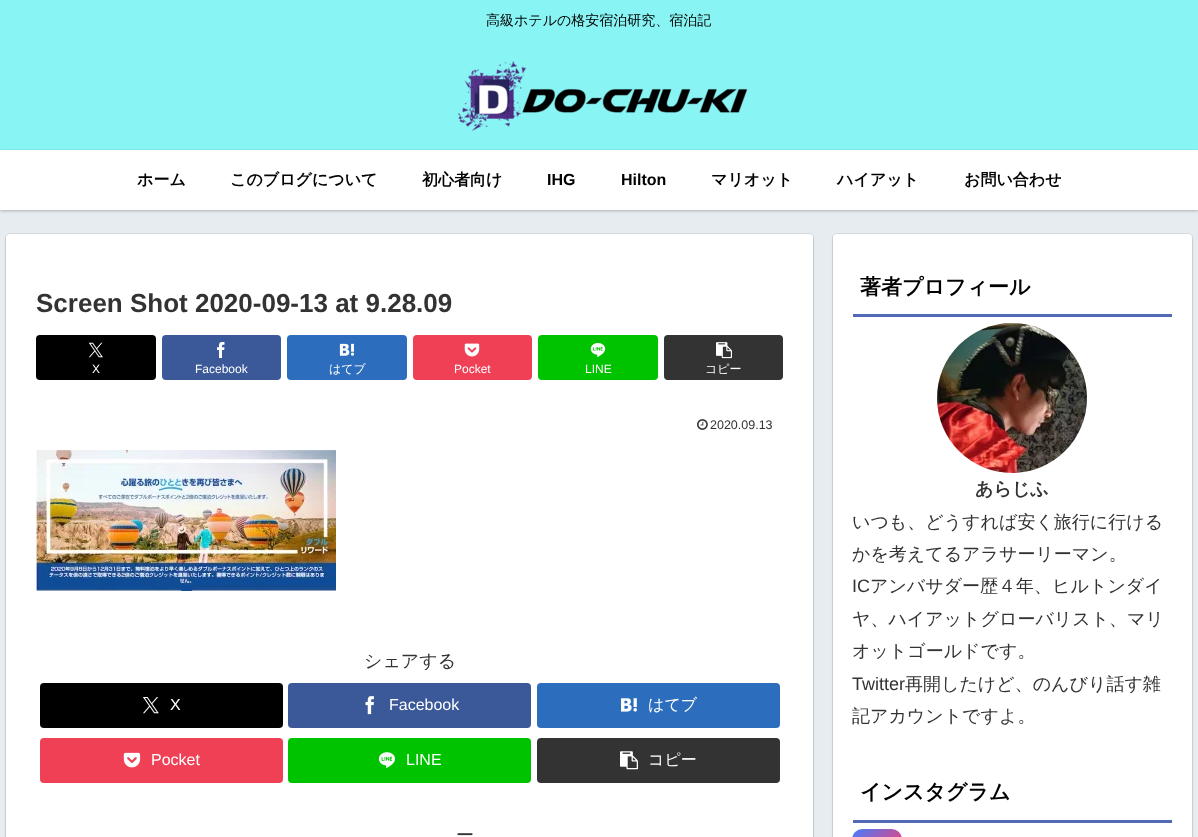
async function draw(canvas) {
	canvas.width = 1198;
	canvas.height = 837;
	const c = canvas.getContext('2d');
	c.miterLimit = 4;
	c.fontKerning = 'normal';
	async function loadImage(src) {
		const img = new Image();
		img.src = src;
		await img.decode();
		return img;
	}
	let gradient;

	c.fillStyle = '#e6ecf0';
	c.fillRect(0, 0, 1198, 837);
	c.fillStyle = '#fff';
	c.fillRect(0, 150, 1198, 60);
	c.fillStyle = '#89f4f4';
	c.fillRect(0, 0, 1198, 150);
	c.font = '500 14px WenQuanYi Zen Hei';
	c.fillStyle = '#000';
	c.fillText('高級ホテルの格安宿泊研究、宿泊記', 486, 25);
	c.drawImage(await loadImage('img1.png'), 458, 61, 290, 70);
	c.save();
	c.beginPath();
	c.moveTo(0, 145);
	c.lineTo(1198, 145);
	c.lineTo(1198, 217);
	c.lineTo(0, 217);
	c.closePath();
	c.moveTo(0, 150);
	c.lineTo(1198, 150);
	c.lineTo(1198, 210);
	c.lineTo(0, 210);
	c.closePath();
	c.clip('evenodd');
	c.fillStyle = '#00000040';
	c.filter = 'blur(1.5px)';
	c.beginPath();
	c.rect(0, 151, 1198, 60);
	c.fill();
	c.filter = 'none';
	c.restore();
	c.font = 'bold 16px WenQuanYi Zen Hei';
	for (const [text, x, y] of [
		['ホーム', 137, 185],
		['このブログについて', 230, 185],
		['初心者向け', 422, 185],
	]) {
		c.fillText(text, x, y);
	}
	c.font = 'bold 16px Liberation Sans';
	c.fillText('IHG', 547, 185);
	c.fillText('Hilton', 621, 185);
	c.font = 'bold 16px WenQuanYi Zen Hei';
	for (const [text, x, y] of [
		['マリオット', 711, 185],
		['ハイアット', 837, 185],
		['お問い合わせ', 964, 185],
	]) {
		c.fillText(text, x, y);
	}
	c.beginPath();
	c.roundRect(5.5, 233.5, 808, 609, 4.5);
	c.strokeStyle = '#d4d9dd';
	c.stroke();
	c.fillStyle = '#00000029';
	c.filter = 'blur(1px)';
	c.beginPath();
	c.roundRect(6, 236, 807, 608, 4);
	c.fill();
	c.filter = 'none';
	c.fillStyle = '#fff';
	c.beginPath();
	c.roundRect(6, 234, 807, 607, 4);
	c.fill();
	c.font = 'bold 26px Liberation Sans';
	c.fillStyle = '#333';
	c.fillText('Screen Shot 2020-09-13 at 9.28.09', 36, 312);
	c.fillStyle = '#000';
	c.beginPath();
	c.roundRect(36, 335, 120, 45, 4);
	c.fill();
	c.drawImage(await loadImage('img2.png'), 88, 342, 15, 16);
	c.font = '12px Liberation Sans';
	c.fillStyle = '#fff';
	c.fillText('X', 92, 373);
	c.fillStyle = '#3b5998';
	c.beginPath();
	c.roundRect(162, 335, 119, 45, 4);
	c.fill();
	c.drawImage(await loadImage('img3.png'), 217, 342, 8, 16);
	c.fillStyle = '#fff';
	c.fillText('Facebook', 195, 373);
	c.fillStyle = '#2c6ebd';
	c.beginPath();
	c.roundRect(287, 335, 120, 45, 4);
	c.fill();
	c.drawImage(await loadImage('img4.png'), 339, 343, 16, 13);
	c.font = '500 12px WenQuanYi Zen Hei';
	c.fillStyle = '#fff';
	c.fillText('はてブ', 329, 373);
	c.fillStyle = '#ef4056';
	c.beginPath();
	c.roundRect(413, 335, 119, 45, 4);
	c.fill();
	c.drawImage(await loadImage('img5.png'), 464, 343, 16, 14);
	c.font = '12px Liberation Sans';
	c.fillStyle = '#fff';
	c.fillText('Pocket', 454, 373);
	c.fillStyle = '#00c300';
	c.beginPath();
	c.roundRect(538, 335, 120, 45, 4);
	c.fill();
	c.drawImage(await loadImage('img6.png'), 590, 343, 16, 14);
	c.fillStyle = '#fff';
	c.fillText('LINE', 585, 373);
	c.fillStyle = '#333';
	c.beginPath();
	c.roundRect(664, 335, 119, 45, 4);
	c.fill();
	c.drawImage(await loadImage('img7.png'), 716, 342, 16, 17);
	c.font = '500 12px WenQuanYi Zen Hei';
	c.fillStyle = '#fff';
	c.fillText('コピー', 705, 373);
	c.drawImage(await loadImage('img8.png'), 697, 419, 11, 11);
	c.font = '12.5px Liberation Sans';
	c.fillStyle = '#333';
	c.fillText('2020.09.13', 710, 429);
	c.drawImage(await loadImage('img9.png'), 36, 450, 300, 141);
	c.font = '500 18px WenQuanYi Zen Hei';
	c.fillText('シェアする', 364, 667);
	c.fillStyle = '#000';
	c.beginPath();
	c.roundRect(40, 683, 243, 45, 4);
	c.fill();
	c.drawImage(await loadImage('img10.png'), 143, 697, 16, 17);
	c.font = '16px Liberation Sans';
	c.fillStyle = '#fff';
	c.fillText('X', 170, 710);
	c.fillStyle = '#3b5998';
	c.beginPath();
	c.roundRect(288, 683, 243, 45, 4);
	c.fill();
	c.drawImage(await loadImage('img11.png'), 365, 696, 9, 19);
	c.fillStyle = '#fff';
	c.fillText('Facebook', 389, 710);
	c.fillStyle = '#2c6ebd';
	c.beginPath();
	c.roundRect(537, 683, 243, 45, 4);
	c.fill();
	c.drawImage(await loadImage('img12.png'), 621, 698, 16, 14);
	c.font = '500 16px WenQuanYi Zen Hei';
	c.fillStyle = '#fff';
	c.fillText('はてブ', 648, 710);
	c.fillStyle = '#ef4056';
	c.beginPath();
	c.roundRect(40, 738, 243, 45, 4);
	c.fill();
	c.drawImage(await loadImage('img13.png'), 123, 752, 18, 16);
	c.font = '16px Liberation Sans';
	c.fillStyle = '#fff';
	c.fillText('Pocket', 151, 765);
	c.fillStyle = '#00c300';
	c.beginPath();
	c.roundRect(288, 738, 243, 45, 4);
	c.fill();
	c.drawImage(await loadImage('img14.png'), 378, 752, 18, 16);
	c.fillStyle = '#fff';
	c.fillText('LINE', 406, 765);
	c.fillStyle = '#333';
	c.beginPath();
	c.roundRect(537, 738, 243, 45, 4);
	c.fill();
	c.drawImage(await loadImage('img15.png'), 620, 751, 18, 19);
	c.font = '500 16px WenQuanYi Zen Hei';
	c.fillStyle = '#fff';
	c.fillText('コピー', 648, 765);
	c.font = '500 18px WenQuanYi Zen Hei';
	c.fillStyle = '#333';
	c.fillText('ー', 456, 841);
	c.beginPath();
	c.roundRect(832.5, 233.5, 360, 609, 4.5);
	c.stroke();
	c.fillStyle = '#00000029';
	c.filter = 'blur(1px)';
	c.beginPath();
	c.roundRect(833, 236, 359, 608, 4);
	c.fill();
	c.filter = 'none';
	c.fillStyle = '#fff';
	c.beginPath();
	c.roundRect(833, 234, 359, 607, 4);
	c.fill();
	c.fillStyle = '#516ab6';
	c.fillRect(853, 314, 319, 3);
	c.font = 'bold 21px WenQuanYi Zen Hei';
	c.fillStyle = '#000';
	c.fillText('著者プロフィール', 860, 294);
	c.drawImage(await loadImage('img16.png'), 937, 323, 150, 150);
	c.font = 'bold 18px WenQuanYi Zen Hei';
	c.fillStyle = '#333';
	c.fillText('あらじふ', 975, 495);
	c.font = '500 18px WenQuanYi Zen Hei';
	c.fillText('いつも、どうすれば安く旅行に行ける', 852, 528);
	c.fillText('かを考えてるアラサーリーマン。', 852, 560);
	c.font = '18px Liberation Sans';
	c.fillText('IC', 852, 592);
	c.font = '500 18px WenQuanYi Zen Hei';
	for (const [text, x, y] of [
		['アンバサダー歴４年、ヒルトンダイ', 870, 592],
		['ヤ、ハイアットグローバリスト、マリ', 852, 625],
		['オットゴールドです。', 852, 657],
	]) {
		c.fillText(text, x, y);
	}
	c.font = '18px Liberation Sans';
	c.fillText('Twitter', 852, 690);
	c.font = '500 18px WenQuanYi Zen Hei';
	c.fillText('再開したけど、のんびり話す雑', 905, 690);
	c.fillText('記アカウントですよ。', 852, 722);
	c.fillStyle = '#516ab6';
	c.fillRect(853, 820, 319, 3);
	c.font = 'bold 21px WenQuanYi Zen Hei';
	c.fillStyle = '#000';
	c.fillText('インスタグラム', 860, 799);
	gradient = c.createLinearGradient(852, 829, 902, 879);
	gradient.addColorStop(0, '#427eff');
	gradient.addColorStop(0.7, '#f13f79');
	c.fillStyle = gradient;
	c.beginPath();
	c.roundRect(852, 829, 50, 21, 13);
	c.fill();
}

draw(document.querySelector('canvas'));
